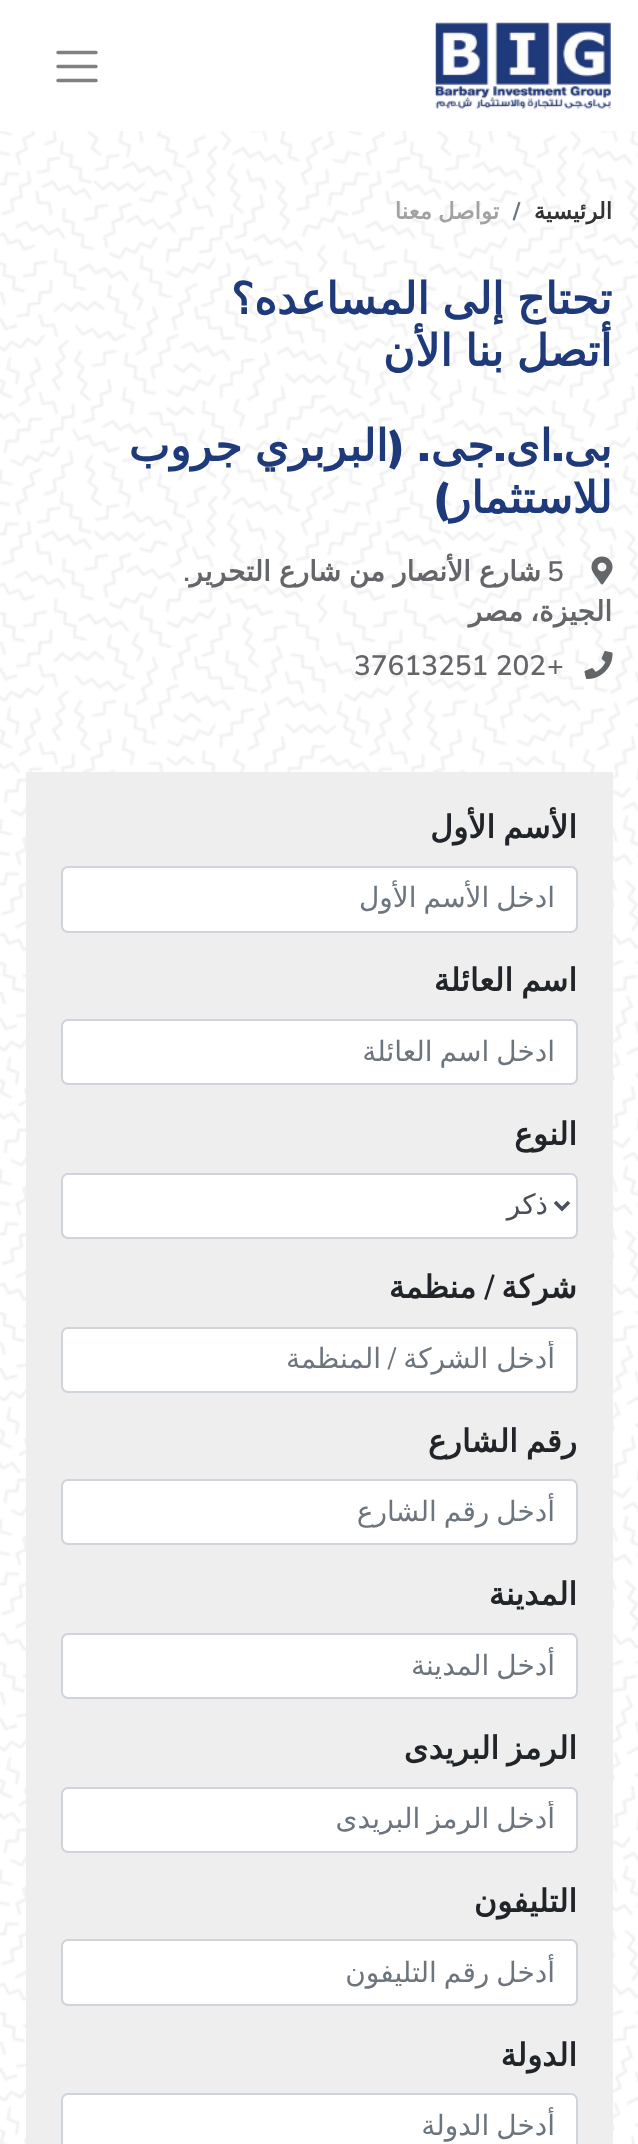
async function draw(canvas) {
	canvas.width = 638;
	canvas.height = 2144;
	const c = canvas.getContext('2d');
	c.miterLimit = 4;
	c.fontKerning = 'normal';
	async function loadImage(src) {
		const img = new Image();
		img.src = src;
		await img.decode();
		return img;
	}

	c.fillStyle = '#fff';
	c.fillRect(0, 0, 638, 2144);
	c.drawImage(await loadImage('img1.png'), 435, 22, 176, 87);
	c.beginPath();
	c.moveTo(58, 52.5);
	c.lineTo(96, 52.5);
	c.moveTo(58, 66.5);
	c.lineTo(96, 66.5);
	c.moveTo(58, 80.5);
	c.lineTo(96, 80.5);
	c.strokeStyle = '#808080';
	c.lineWidth = 3.5;
	c.lineCap = 'round';
	c.stroke();
	c.drawImage(await loadImage('img2.png'), 0, 131, 638, 2013);
	c.direction = 'rtl';
	c.font = 'bold 22.75px DejaVu Sans';
	c.fillStyle = '#333';
	c.fillText('الرئيسية', 612, 219);
	c.direction = 'ltr';
	c.font = 'bold 22.75px Nunito Sans';
	c.fillStyle = '#6c757d';
	c.fillText('/', 513, 219);
	c.wordSpacing = '-1px';
	c.direction = 'rtl';
	c.font = 'bold 22.75px DejaVu Sans';
	c.fillStyle = '#a2a2a2';
	c.fillText('تواصل معنا', 499, 219);
	c.font = 'bold 43.75px DejaVu Sans';
	c.fillStyle = '#1e3a7b';
	c.fillText('تحتاج إلى المساعده؟', 612, 314);
	c.fillText('أتصل بنا الأن', 612, 366);
	c.wordSpacing = '0px';
	c.fillText('بى', 612, 461);
	c.font = '900 43.75px Nunito Sans';
	c.fillText('.', 564, 461);
	c.font = 'bold 43.75px DejaVu Sans';
	c.fillText('اى', 552, 461);
	c.font = '900 43.75px Nunito Sans';
	c.fillText('.', 506, 461);
	c.font = 'bold 43.75px DejaVu Sans';
	c.fillText('جى', 494, 461);
	c.font = '900 43.75px Nunito Sans';
	c.fillText('. (', 430, 461);
	c.font = 'bold 43.75px DejaVu Sans';
	for (const [text, x, y] of [
		['البربري', 388, 461],
		['جروب', 242, 461],
		['للاستثمار', 612, 513],
	]) {
		c.fillText(text, x, y);
	}
	c.font = '900 43.75px Nunito Sans';
	c.fillText(')', 450, 513);
	c.drawImage(await loadImage('img3.png'), 591, 556, 22, 29);
	c.direction = 'ltr';
	c.font = '600 28px Nunito Sans';
	c.fillStyle = '#646669';
	c.fillText('5', 547, 581);
	c.direction = 'rtl';
	c.fillText('.', 190, 581);
	c.wordSpacing = '-1px';
	c.font = 'bold 28px DejaVu Sans';
	c.fillText('شارع الأنصار من شارع التحرير', 541, 581);
	c.wordSpacing = '-2px';
	c.fillText('الجيزة، مصر', 612, 621);
	c.drawImage(await loadImage('img4.png'), 584, 651, 29, 28);
	c.wordSpacing = '0px';
	c.direction = 'ltr';
	c.font = '600 28px Nunito Sans';
	c.fillText('+', 547, 675);
	c.fillText('37613251 202', 354, 675);
	c.fillStyle = '#eee';
	c.fillRect(26, 772, 587, 1372);
	c.wordSpacing = '-2px';
	c.direction = 'rtl';
	c.font = 'bold 31.5px DejaVu Sans';
	c.fillStyle = '#212529';
	c.fillText('اﻷسم اﻷول', 577, 838);
	c.fillStyle = '#fff';
	c.beginPath();
	c.roundRect(62, 867, 515, 65, 6);
	c.fill();
	c.strokeStyle = '#ced4da';
	c.lineWidth = 2;
	c.stroke();
	c.save();
	c.beginPath();
	c.rect(84, 880, 471, 39);
	c.clip();
	c.font = '28px DejaVu Sans';
	c.fillStyle = '#6c757d';
	c.fillText('ادخل اﻷسم اﻷول', 555, 907);
	c.restore();
	c.fillStyle = '#212529';
	c.fillText('اسم العائلة', 577, 991);
	c.fillStyle = '#fff';
	c.beginPath();
	c.roundRect(62, 1020, 515, 64, 6);
	c.fill();
	c.stroke();
	c.save();
	c.beginPath();
	c.rect(84, 1033, 471, 38);
	c.clip();
	c.font = '28px DejaVu Sans';
	c.fillStyle = '#6c757d';
	c.fillText('ادخل اسم العائلة', 555, 1061);
	c.restore();
	c.wordSpacing = '0px';
	c.fillStyle = '#212529';
	c.fillText('النوع', 577, 1145);
	c.fillStyle = '#fff';
	c.beginPath();
	c.roundRect(62, 1174, 515, 64, 6);
	c.fill();
	c.stroke();
	c.beginPath();
	c.moveTo(555, 1202);
	c.lineTo(562, 1209);
	c.lineTo(569, 1202);
	c.strokeStyle = '#495057';
	c.lineWidth = 3.5;
	c.lineCap = 'butt';
	c.stroke();
	c.font = '28px DejaVu Sans';
	c.fillStyle = '#495057';
	c.fillText('ذكر', 548, 1214);
	c.font = 'bold 31.5px DejaVu Sans';
	c.fillStyle = '#212529';
	c.fillText('شركة', 577, 1298);
	c.font = '600 31.5px Nunito Sans';
	c.fillText('/', 494, 1298);
	c.font = 'bold 31.5px DejaVu Sans';
	c.fillText('منظمة', 476, 1298);
	c.fillStyle = '#fff';
	c.beginPath();
	c.roundRect(62, 1328, 515, 64, 6);
	c.fill();
	c.strokeStyle = '#ced4da';
	c.lineWidth = 2;
	c.stroke();
	c.save();
	c.beginPath();
	c.rect(84, 1341, 471, 38);
	c.clip();
	c.wordSpacing = '-1px';
	c.font = '28px DejaVu Sans';
	c.fillStyle = '#6c757d';
	c.fillText('أدخل الشركة', 555, 1368);
	c.restore();
	c.font = '28px Nunito Sans';
	c.fillStyle = '#6c757d';
	c.fillText('/', 396, 1368);
	c.font = '28px DejaVu Sans';
	c.fillText('المنظمة', 381, 1368);
	c.wordSpacing = '-2px';
	c.font = 'bold 31.5px DejaVu Sans';
	c.fillStyle = '#212529';
	c.fillText('رقم الشارع', 577, 1452);
	c.fillStyle = '#fff';
	c.beginPath();
	c.roundRect(62, 1480, 515, 64, 6);
	c.fill();
	c.stroke();
	c.save();
	c.beginPath();
	c.rect(84, 1493, 471, 38);
	c.clip();
	c.font = '28px DejaVu Sans';
	c.fillStyle = '#6c757d';
	c.fillText('أدخل رقم الشارع', 555, 1521);
	c.restore();
	c.wordSpacing = '0px';
	c.fillStyle = '#212529';
	c.fillText('المدينة', 577, 1605);
	c.fillStyle = '#fff';
	c.beginPath();
	c.roundRect(62, 1634, 515, 64, 6);
	c.fill();
	c.stroke();
	c.wordSpacing = '-2px';
	c.font = '28px DejaVu Sans';
	c.fillStyle = '#6c757d';
	c.fillText('أدخل المدينة', 555, 1675);
	c.font = 'bold 31.5px DejaVu Sans';
	c.fillStyle = '#212529';
	c.fillText('الرمز البريدى', 577, 1759);
	c.fillStyle = '#fff';
	c.beginPath();
	c.roundRect(62, 1788, 515, 64, 6);
	c.fill();
	c.stroke();
	c.save();
	c.beginPath();
	c.rect(84, 1801, 471, 38);
	c.clip();
	c.font = '28px DejaVu Sans';
	c.fillStyle = '#6c757d';
	c.fillText('أدخل الرمز البريدى', 555, 1828);
	c.restore();
	c.wordSpacing = '0px';
	c.fillStyle = '#212529';
	c.fillText('التليفون', 577, 1912);
	c.fillStyle = '#fff';
	c.beginPath();
	c.roundRect(62, 1940, 515, 65, 6);
	c.fill();
	c.stroke();
	c.save();
	c.beginPath();
	c.rect(84, 1953, 471, 39);
	c.clip();
	c.wordSpacing = '-2px';
	c.font = '28px DejaVu Sans';
	c.fillStyle = '#6c757d';
	c.fillText('أدخل رقم التليفون', 555, 1982);
	c.restore();
	c.fillStyle = '#212529';
	c.fillText('الدولة', 577, 2066);
	c.fillStyle = '#fff';
	c.beginPath();
	c.roundRect(63, 2095, 513, 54, 5);
	c.fill();
	c.beginPath();
	c.roundRect(62, 2094, 515, 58, 6);
	c.stroke();
	c.wordSpacing = '-2px';
	c.font = '28px DejaVu Sans';
	c.fillStyle = '#6c757d';
	c.fillText('أدخل الدولة', 555, 2135);
}

draw(document.querySelector('canvas'));
